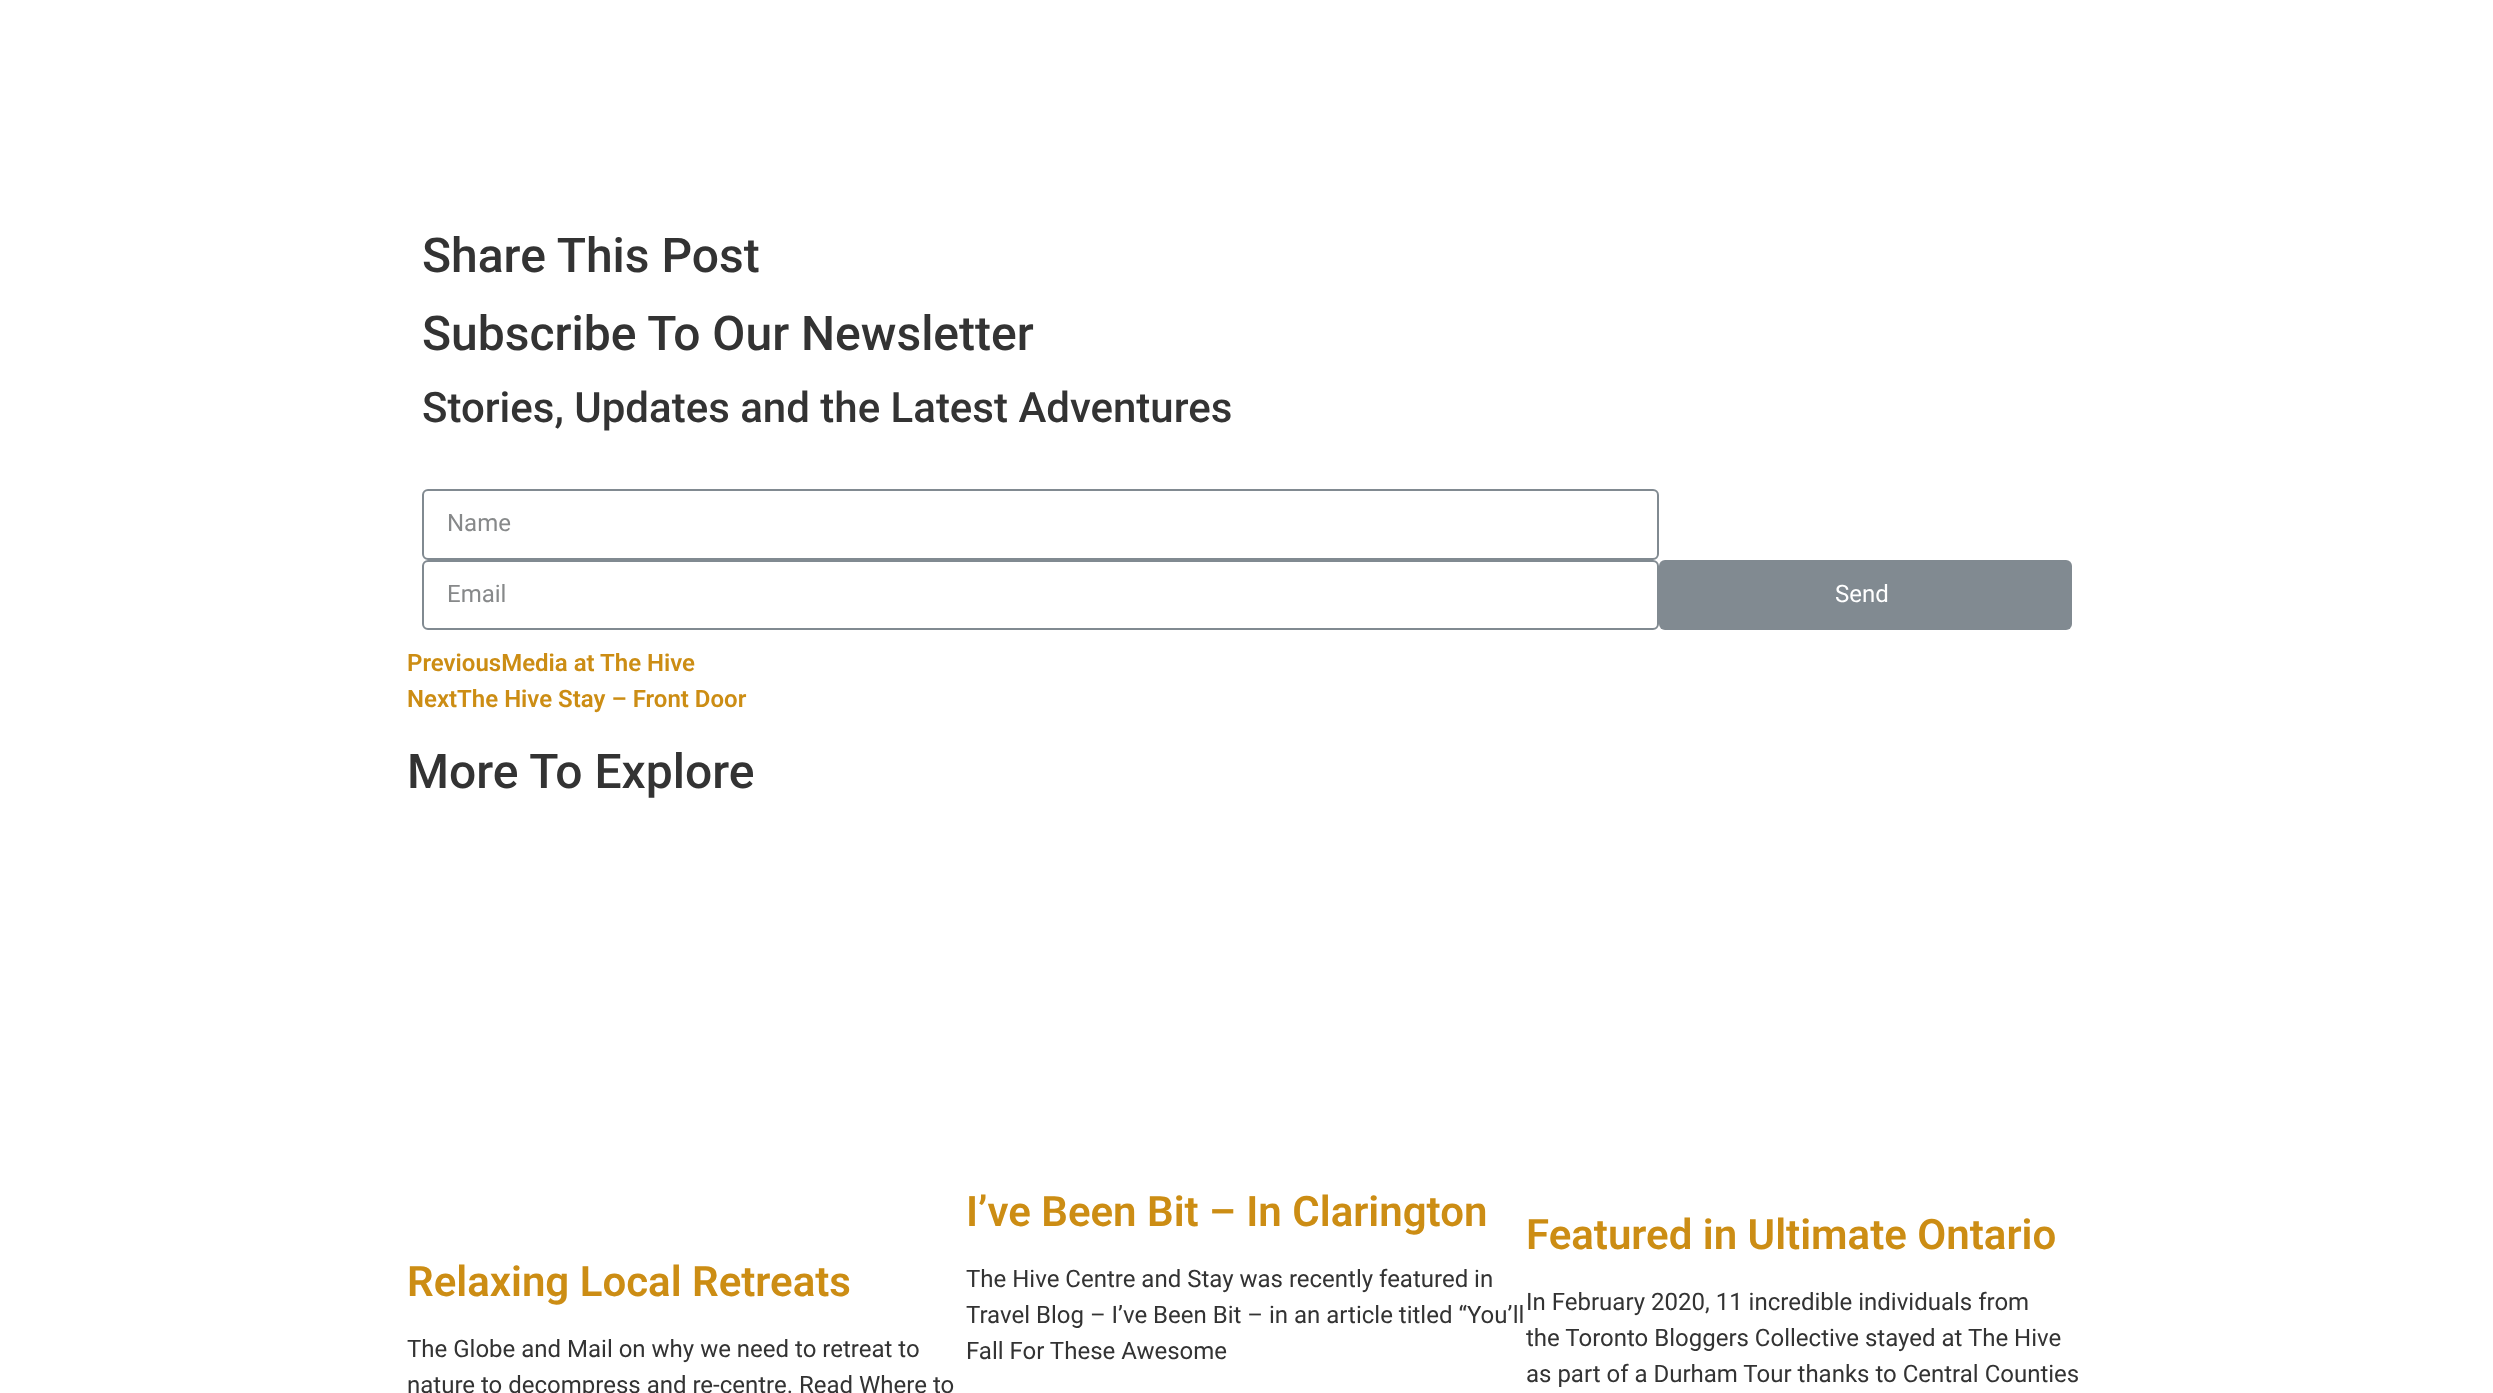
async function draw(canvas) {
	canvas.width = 2493;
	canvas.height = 1393;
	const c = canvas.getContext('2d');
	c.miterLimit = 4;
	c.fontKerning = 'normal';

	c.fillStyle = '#fff';
	c.fillRect(0, 0, 2493, 1393);
	c.font = '500 48px Roboto';
	c.fillStyle = '#333';
	c.fillText('Share This Post', 422, 272);
	c.fillText('Subscribe To Our Newsletter', 422, 350);
	c.font = '500 42px Roboto';
	c.fillText('Stories, Updates and the Latest Adventures', 422, 422);
	c.beginPath();
	c.roundRect(423, 490, 1235, 69, 5);
	c.strokeStyle = '#818a91';
	c.lineWidth = 2;
	c.stroke();
	c.font = '24px Roboto';
	c.fillStyle = '#87898a';
	c.fillText('Name', 447, 531);
	c.beginPath();
	c.roundRect(423, 561, 1235, 68, 5);
	c.stroke();
	c.fillText('Email', 447, 602);
	c.fillStyle = '#818a91';
	c.beginPath();
	c.roundRect(1659, 560, 413, 70, 6);
	c.fill();
	c.fillStyle = '#fff';
	c.fillText('Send', 1835, 602);
	c.font = '600 24px Roboto';
	c.fillStyle = '#cc8d14';
	c.fillText('PreviousMedia at The Hive', 407, 671);
	c.fillText('NextThe Hive Stay – Front Door', 407, 707);
	c.font = '500 48px Roboto';
	c.fillStyle = '#333';
	c.fillText('More To Explore', 407, 788);
	c.font = '600 42px Roboto';
	c.fillStyle = '#cc8d14';
	c.fillText('Relaxing Local Retreats', 407, 1296);
	c.font = '24px Roboto';
	c.fillStyle = '#333';
	c.fillText('The Globe and Mail on why we need to retreat to', 407, 1357);
	c.fillText('nature to decompress and re-centre. Read Where to', 407, 1393);
	c.font = '600 42px Roboto';
	c.fillStyle = '#cc8d14';
	c.fillText('I’ve Been Bit – In Clarington', 966, 1226);
	c.font = '24px Roboto';
	c.fillStyle = '#333';
	for (const [text, x, y] of [
		['The Hive Centre and Stay was recently featured in', 966, 1287],
		['Travel Blog – I’ve Been Bit – in an article titled “You’ll', 966, 1323],
		['Fall For These Awesome', 966, 1359],
	]) {
		c.fillText(text, x, y);
	}
	c.font = '600 42px Roboto';
	c.fillStyle = '#cc8d14';
	c.fillText('Featured in Ultimate Ontario', 1526, 1249);
	c.font = '24px Roboto';
	c.fillStyle = '#333';
	for (const [text, x, y] of [
		['In February 2020, 11 incredible individuals from', 1526, 1310],
		['the Toronto Bloggers Collective stayed at The Hive', 1526, 1346],
		['as part of a Durham Tour thanks to Central Counties', 1526, 1382],
	]) {
		c.fillText(text, x, y);
	}
}

draw(document.querySelector('canvas'));
